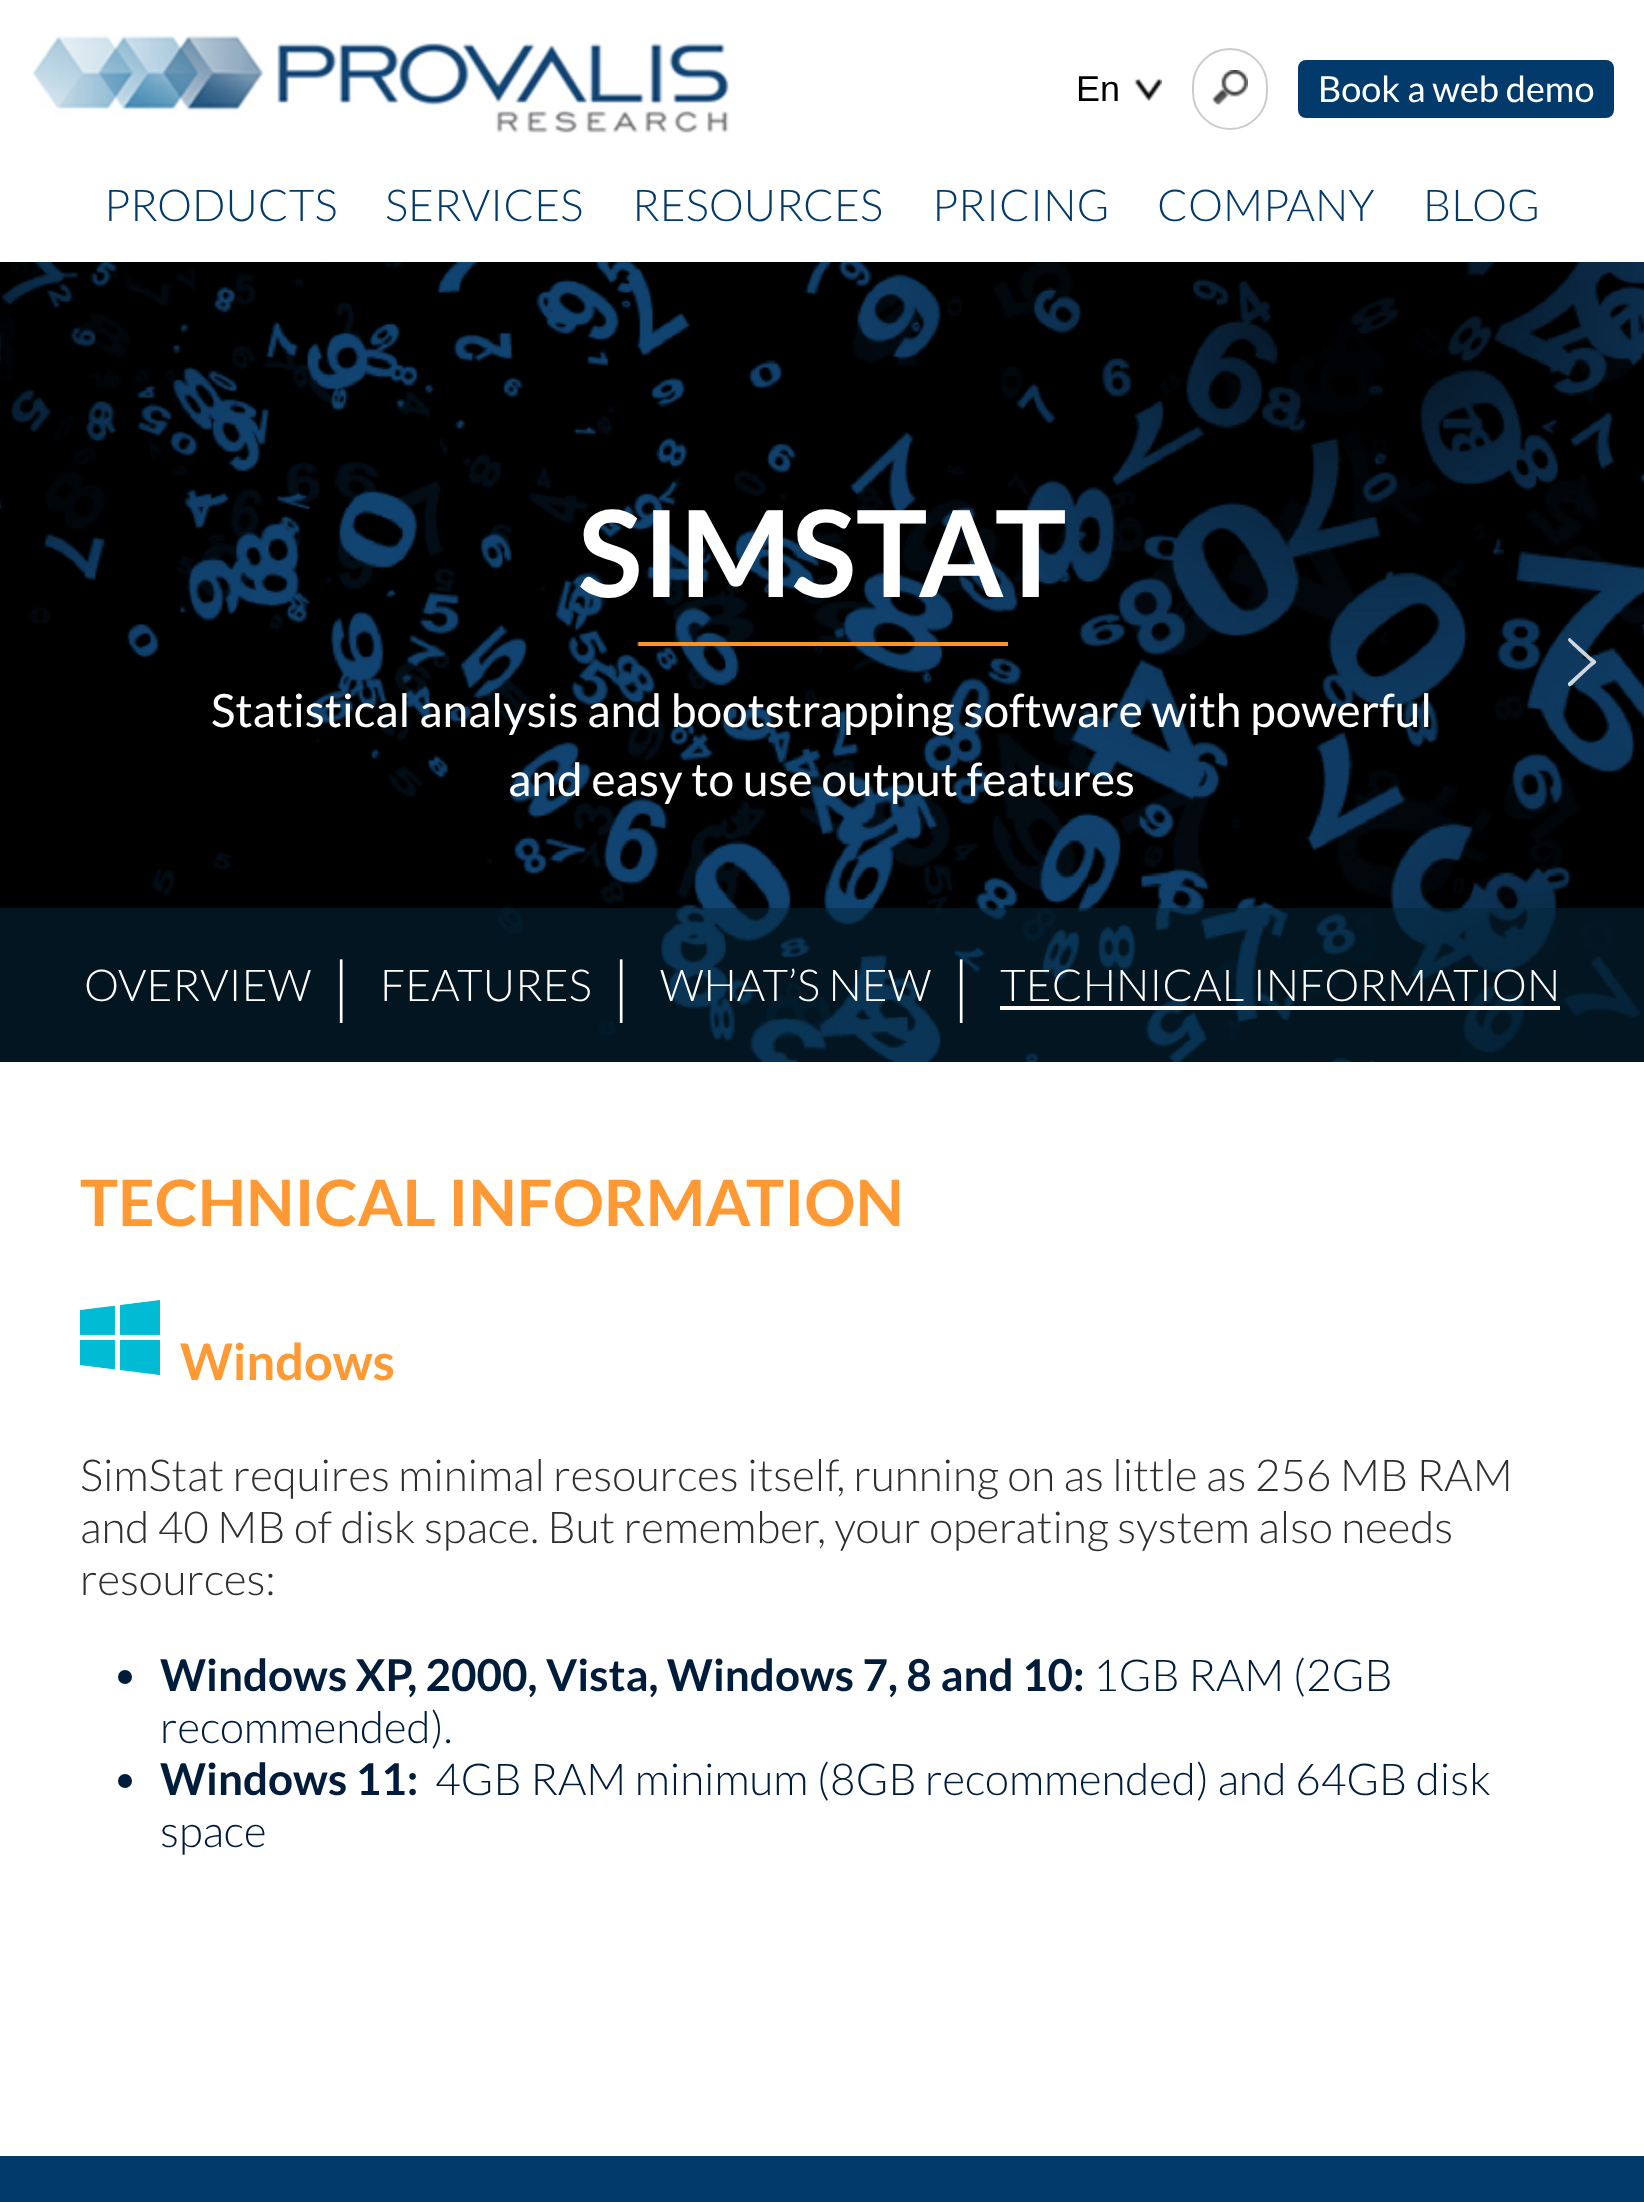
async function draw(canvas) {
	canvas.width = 1644;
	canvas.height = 2202;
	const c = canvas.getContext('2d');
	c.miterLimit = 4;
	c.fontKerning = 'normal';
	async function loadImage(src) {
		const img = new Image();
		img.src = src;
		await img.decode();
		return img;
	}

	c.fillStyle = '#fff';
	c.fillRect(0, 0, 1644, 2202);
	c.drawImage(await loadImage('img1.png'), 32, 35, 697, 98);
	c.drawImage(await loadImage('img2.png'), 1134, 78, 28, 24);
	c.font = '36px Liberation Sans';
	c.fillStyle = '#000';
	c.fillText('En', 1076, 101);
	c.drawImage(await loadImage('img3.png'), 1212, 70, 36, 36);
	c.beginPath();
	c.roundRect(1193, 49, 74, 80, 37);
	c.strokeStyle = '#ccc';
	c.lineWidth = 2;
	c.stroke();
	c.fillStyle = '#033a6c';
	c.beginPath();
	c.roundRect(1298, 60, 316, 58, 8);
	c.fill();
	c.font = '36px Lato';
	c.fillStyle = '#fff';
	c.fillText('Book a web demo', 1318, 102);
	c.font = '300 44px Lato';
	c.fillStyle = '#033a6c';
	for (const [text, x, y] of [
		['PRODUCTS', 104, 221],
		['SERVICES', 385, 221],
		['RESOURCES', 632, 221],
		['PRICING', 932, 221],
		['COMPANY', 1157, 221],
		['BLOG', 1423, 221],
	]) {
		c.fillText(text, x, y);
	}
	c.drawImage(await loadImage('img4.png'), 0, 262, 1644, 800);
	c.font = 'bold 120px Lato';
	c.fillStyle = '#fff';
	c.fillText('SIMSTAT', 578, 597);
	c.drawImage(await loadImage('img5.png'), 637, 642, 371, 4);
	c.font = '46px Lato';
	c.fillText('Statistical analysis and bootstrapping software with powerful', 211, 727);
	c.fillText('and easy to use output features', 508, 796);
	c.fillStyle = '#ffffffcc';
	c.beginPath();
	c.moveTo(1571, 639);
	c.bezierCurveTo(1570, 637, 1568, 638, 1568, 640);
	c.bezierCurveTo(1568, 642, 1588, 659, 1591, 662);
	c.lineTo(1568, 683);
	c.lineTo(1568, 685);
	c.bezierCurveTo(1570, 689, 1575, 682, 1575, 682);
	c.lineTo(1591, 667);
	c.bezierCurveTo(1598, 662, 1598, 662, 1591, 657);
	c.closePath();
	c.fill('evenodd');
	c.fillStyle = '#04293e85';
	c.fillRect(0, 908, 1644, 154);
	c.font = '300 44px Lato';
	c.fillStyle = '#fff';
	c.fillText('OVERVIEW', 84, 1001);
	c.font = '300 68px Lato';
	c.fillText('|', 331, 1011);
	c.font = '300 44px Lato';
	c.fillText('FEATURES', 380, 1001);
	c.font = '300 68px Lato';
	c.fillText('|', 611, 1011);
	c.font = '300 44px Lato';
	c.fillText('WHAT’S NEW', 660, 1001);
	c.font = '300 68px Lato';
	c.fillText('|', 951, 1011);
	c.font = '300 44px Lato';
	c.fillText('TECHNICAL INFORMATION', 1000, 1001);
	c.fillRect(1000, 1006, 560, 4);
	c.font = 'bold 64px Lato';
	c.fillStyle = '#f93';
	c.fillText('TECHNICAL INFORMATION', 80, 1226);
	c.drawImage(await loadImage('img6.png'), 80, 1300, 80, 75);
	c.font = 'bold 50.5px Lato';
	c.fillText('Windows', 180, 1380);
	c.font = '300 44px Lato';
	c.fillStyle = '#2f2f2f';
	for (const [text, x, y] of [
		['SimStat requires minimal resources itself, running on as little as 256 MB RAM', 80, 1491],
		['and 40 MB of disk space. But remember, your operating system also needs', 80, 1543],
		['resources:', 80, 1595],
	]) {
		c.fillText(text, x, y);
	}
	c.fillStyle = '#001c3b';
	c.beginPath();
	c.arc(125, 1677, 7, 0, 2 * Math.PI);
	c.fill();
	c.font = 'bold 44px Lato';
	c.fillText('Windows XP, 2000, Vista, Windows 7, 8 and 10:', 160, 1691);
	c.font = '300 44px Lato';
	c.fillText('1GB RAM (2GB', 1093, 1691);
	c.fillText('recommended).', 160, 1743);
	c.beginPath();
	c.arc(125, 1781, 7, 0, 2 * Math.PI);
	c.fill();
	c.font = 'bold 44px Lato';
	c.fillText('Windows 11:', 160, 1795);
	c.font = '300 44px Lato';
	c.fillText('4GB RAM minimum (8GB recommended) and 64GB disk', 435, 1795);
	c.fillText('space', 160, 1847);
	c.fillStyle = '#033a6c';
	c.fillRect(0, 2156, 1644, 46);
}

draw(document.querySelector('canvas'));
